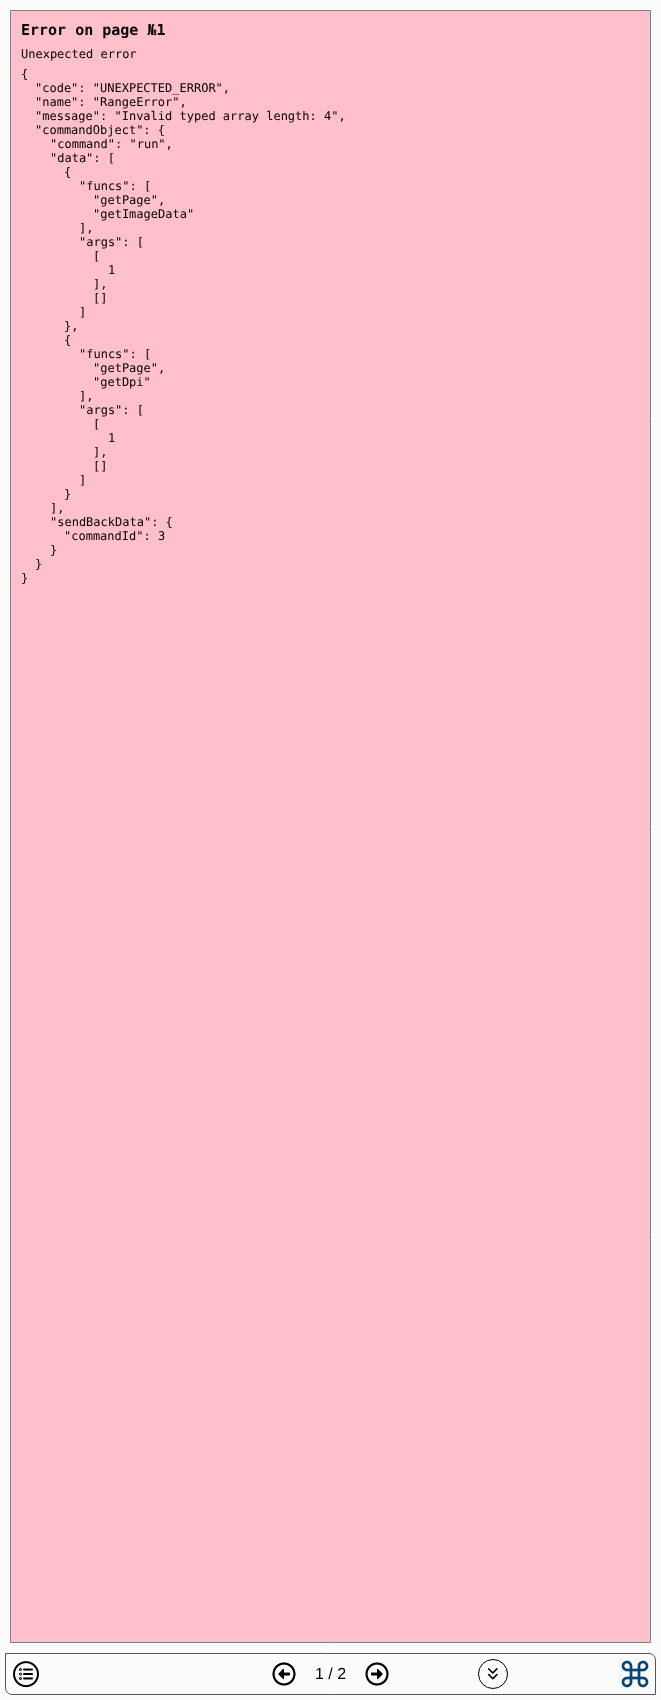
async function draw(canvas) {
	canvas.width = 661;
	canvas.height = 1700;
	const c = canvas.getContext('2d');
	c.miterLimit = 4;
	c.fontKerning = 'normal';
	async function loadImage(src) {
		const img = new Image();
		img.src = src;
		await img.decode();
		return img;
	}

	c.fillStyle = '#fcfcfc';
	c.fillRect(0, 0, 661, 1700);
	c.fillStyle = '#ffc0cb';
	c.beginPath();
	c.rect(10.5, 10.5, 640, 1632);
	c.fill();
	c.strokeStyle = '#808080';
	c.stroke();
	c.font = 'bold 15px DejaVu Sans Mono';
	c.fillStyle = '#000';
	c.fillText('Error on page №1', 21, 35);
	c.font = '12px DejaVu Sans Mono';
	for (const [text, x, y] of [
		['Unexpected error', 21, 58],
		['{', 21, 78],
		['"code": "UNEXPECTED_ERROR",', 35, 92],
		['"name": "RangeError",', 35, 106],
		['"message": "Invalid typed array length: 4",', 35, 120],
		['"commandObject": {', 35, 134],
		['"command": "run",', 50, 148],
		['"data": [', 50, 162],
		['{', 64, 176],
		['"funcs": [', 79, 190],
		['"getPage",', 93, 204],
		['"getImageData"', 93, 218],
		['],', 79, 232],
		['"args": [', 79, 246],
		['[', 93, 260],
		['1', 108, 274],
		['],', 93, 288],
		['[]', 93, 302],
		[']', 79, 316],
		['},', 64, 330],
		['{', 64, 344],
		['"funcs": [', 79, 358],
		['"getPage",', 93, 372],
		['"getDpi"', 93, 386],
		['],', 79, 400],
		['"args": [', 79, 414],
		['[', 93, 428],
		['1', 108, 442],
		['],', 93, 456],
		['[]', 93, 470],
		[']', 79, 484],
		['}', 64, 498],
		['],', 50, 512],
		['"sendBackData": {', 50, 526],
		['"commandId": 3', 64, 540],
		['}', 50, 554],
		['}', 35, 568],
		['}', 21, 582],
	]) {
		c.fillText(text, x, y);
	}
	c.beginPath();
	c.roundRect(5.5, 1653.5, 650, 41, [0, 6.5, 0, 6.5]);
	c.strokeStyle = '#555';
	c.stroke();
	c.drawImage(await loadImage('img1.png'), 13, 1661, 26, 27);
	c.drawImage(await loadImage('img2.png'), 272, 1662, 24, 24);
	c.font = '16px Liberation Sans';
	c.fillText('1 / 2', 315, 1679);
	c.drawImage(await loadImage('img3.png'), 365, 1662, 24, 24);
	c.beginPath();
	c.arc(493, 1674, 14.5, 0, 2 * Math.PI);
	c.strokeStyle = '#000';
	c.stroke();
	c.drawImage(await loadImage('img4.png'), 487, 1668, 11, 12);
	c.drawImage(await loadImage('img5.png'), 621, 1660, 28, 28);
}

draw(document.querySelector('canvas'));
